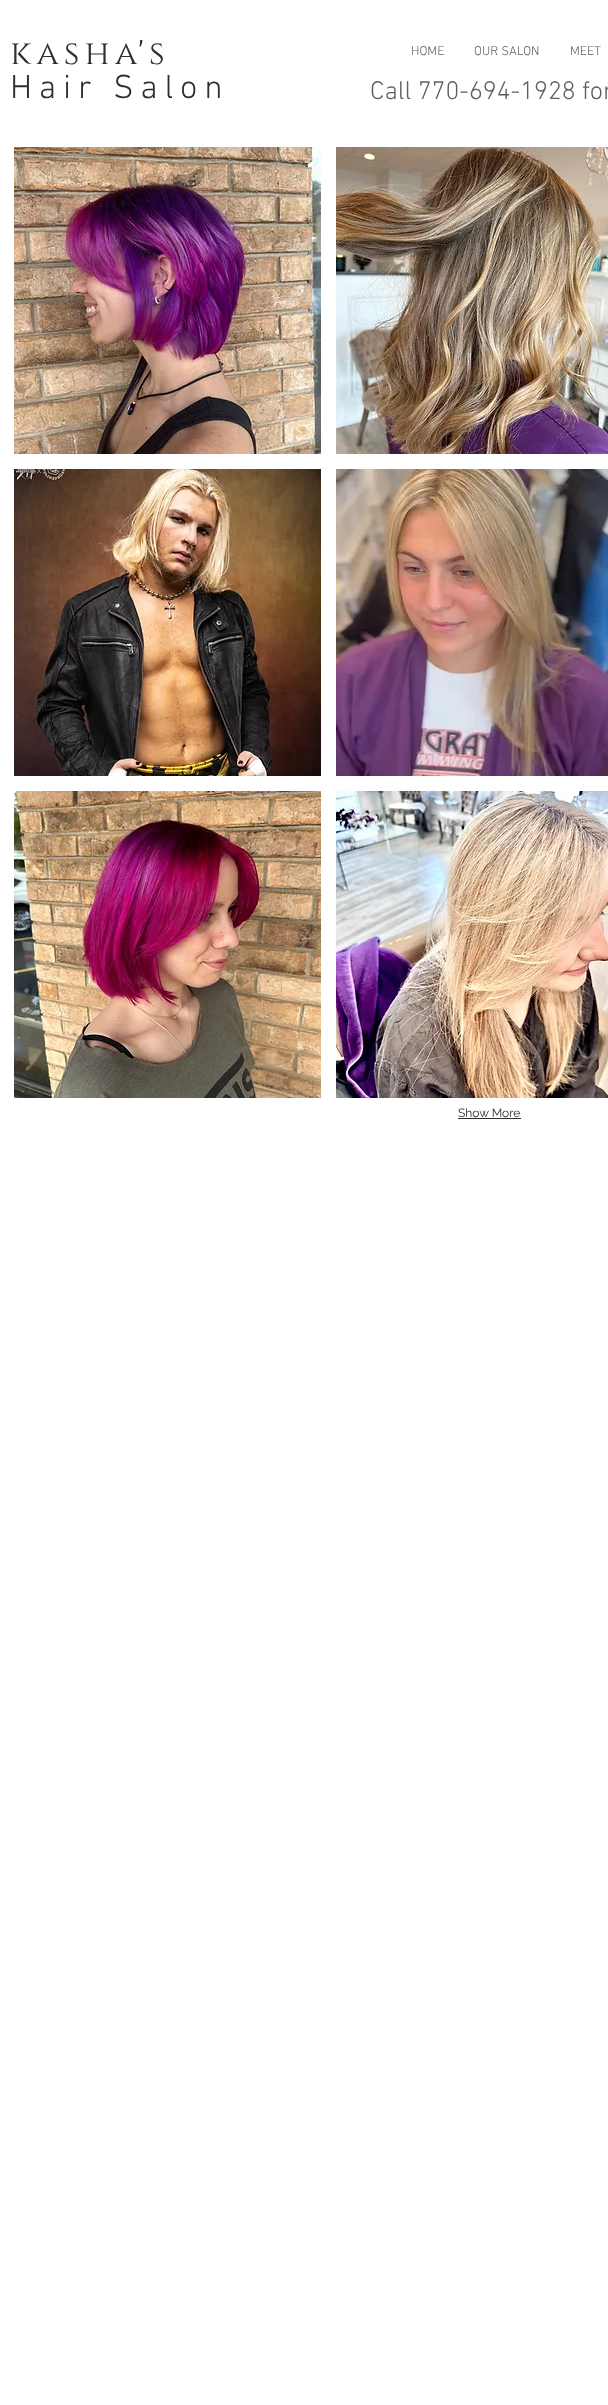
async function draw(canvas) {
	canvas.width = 608;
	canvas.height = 2405;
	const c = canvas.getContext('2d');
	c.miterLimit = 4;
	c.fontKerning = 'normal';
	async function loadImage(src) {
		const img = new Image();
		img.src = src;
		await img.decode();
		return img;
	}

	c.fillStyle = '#fff';
	c.fillRect(0, 0, 608, 2405);
	c.letterSpacing = '5px';
	c.font = '34px Cinzel';
	c.fillStyle = '#2f2e2e';
	c.fillText('kasha\'s', 10, 64);
	c.letterSpacing = '6.75px';
	c.font = '300 34px "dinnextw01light"';
	c.fillText('Hair Salon', 10, 98);
	c.letterSpacing = '0px';
	c.font = '300 13px "dinnextw01light"';
	c.fillStyle = '#605e5e';
	for (const [text, x, y] of [
		['HOME', 411, 55],
		['OUR SALON', 474, 55],
		['MEET', 570, 55],
	]) {
		c.fillText(text, x, y);
	}
	c.font = '300 26px "dinnextw01light"';
	c.fillText('Call 770-694-1928 for', 370, 99);
	c.drawImage(await loadImage('img1.png'), 14, 147, 307, 307);
	c.drawImage(await loadImage('img2.png'), 336, 147, 272, 307);
	c.drawImage(await loadImage('img3.png'), 14, 469, 307, 307);
	c.drawImage(await loadImage('img4.png'), 336, 469, 272, 307);
	c.drawImage(await loadImage('img5.png'), 14, 791, 307, 307);
	c.drawImage(await loadImage('img6.png'), 336, 791, 272, 307);
	c.font = '12px Raleway';
	c.fillStyle = '#2f2e2e';
	c.fillText('Show More', 458, 1117);
	c.fillRect(458, 1118, 63, 1);
}

draw(document.querySelector('canvas'));
